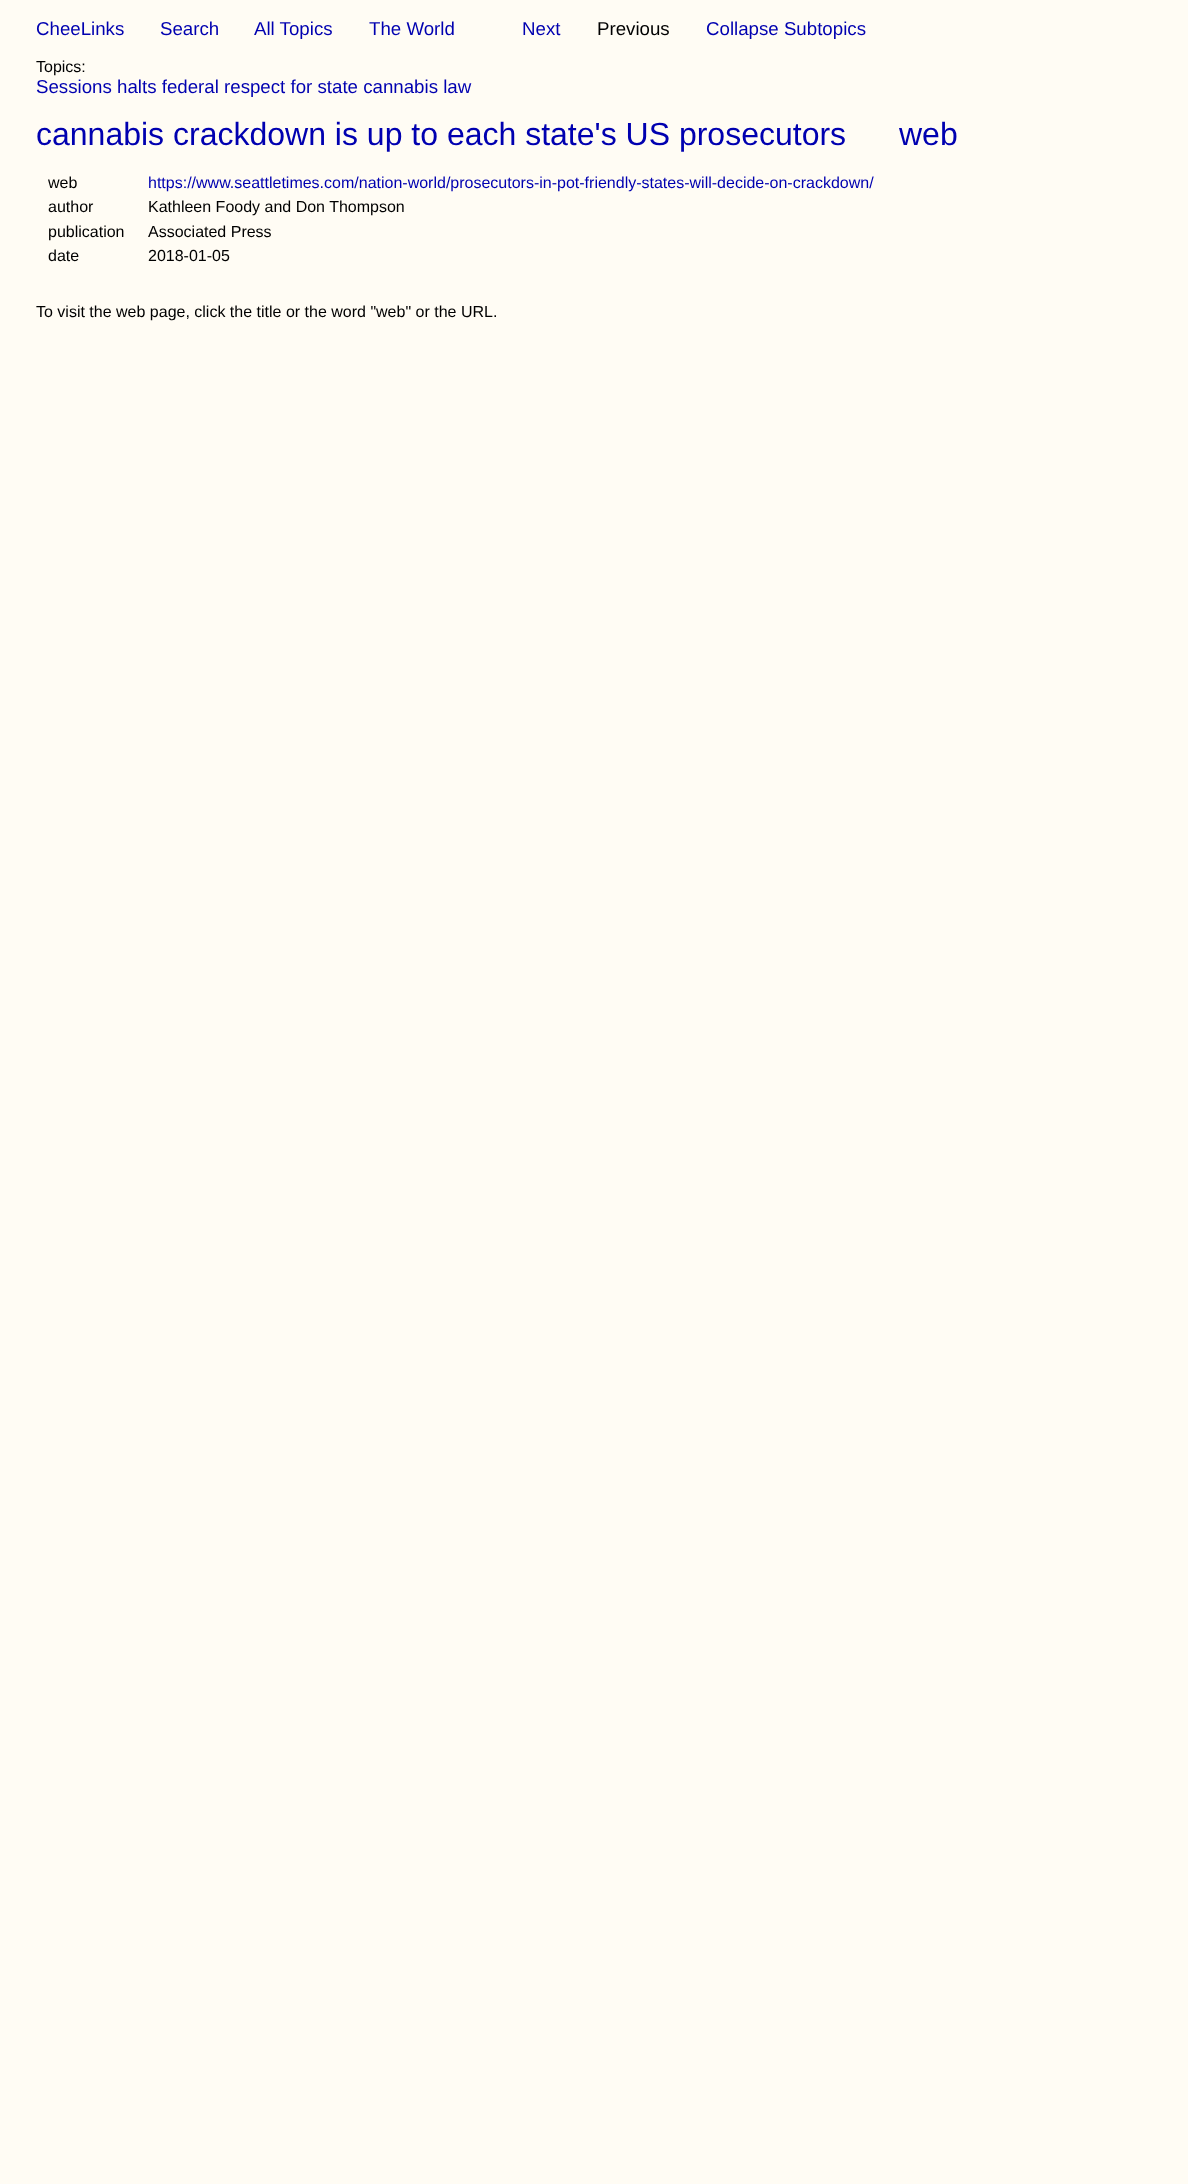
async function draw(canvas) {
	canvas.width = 1188;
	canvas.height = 2184;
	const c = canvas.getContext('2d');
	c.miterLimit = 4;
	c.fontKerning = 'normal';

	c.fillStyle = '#fffcf4';
	c.fillRect(0, 0, 1188, 2184);
	c.font = '18.7px Liberation Sans';
	c.fillStyle = '#0000b0';
	for (const [text, x, y] of [
		['CheeLinks', 36, 35],
		['Search', 160, 35],
		['All Topics', 254, 35],
		['The World', 369, 35],
		['Next', 522, 35],
	]) {
		c.fillText(text, x, y);
	}
	c.fillStyle = '#000';
	c.fillText('Previous', 597, 35);
	c.fillStyle = '#0000b0';
	c.fillText('Collapse Subtopics', 706, 35);
	c.font = '16px Liberation Sans';
	c.fillStyle = '#000';
	c.fillText('Topics:', 36, 72);
	c.font = '18.7px Liberation Sans';
	c.fillStyle = '#0000b0';
	c.fillText('Sessions halts federal respect for state cannabis law', 36, 93);
	c.font = '32px Liberation Sans';
	c.fillText('cannabis crackdown is up to each state\'s US prosecutors', 36, 145);
	c.fillText('web', 899, 145);
	c.font = '16px Liberation Sans';
	c.fillStyle = '#000';
	c.fillText('web', 48, 188);
	c.fillStyle = '#0000b0';
	c.fillText('https://www.seattletimes.com/nation-world/prosecutors-in-pot-friendly-states-will-decide-on-crackdown/', 148, 188);
	c.fillStyle = '#000';
	for (const [text, x, y] of [
		['author', 48, 212],
		['Kathleen Foody and Don Thompson', 148, 212],
		['publication', 48, 237],
		['Associated Press', 148, 237],
		['date', 48, 261],
		['2018-01-05', 148, 261],
		['To visit the web page, click the title or the word "web" or the URL.', 36, 317],
	]) {
		c.fillText(text, x, y);
	}
}

draw(document.querySelector('canvas'));
